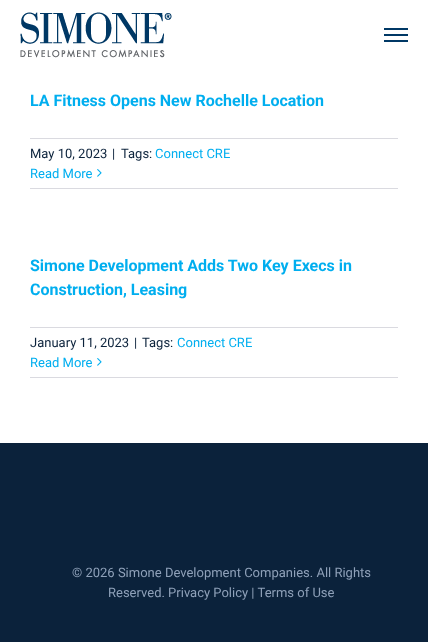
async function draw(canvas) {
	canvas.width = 428;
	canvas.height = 642;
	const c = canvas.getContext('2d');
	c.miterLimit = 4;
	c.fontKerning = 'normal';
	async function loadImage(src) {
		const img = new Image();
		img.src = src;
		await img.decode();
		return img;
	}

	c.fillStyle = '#fff';
	c.fillRect(0, 0, 428, 642);
	c.drawImage(await loadImage('img1.png'), 20, 12, 152, 46);
	for (const [x, y, w, h, color] of [
		[384, 28, 24, 2, '#003865'],
		[384, 34, 24, 2, '#003865'],
		[384, 40, 24, 2, '#003865'],
	]) {
		c.fillStyle = color;
		c.fillRect(x, y, w, h);
	}
	c.font = 'bold 16px Roboto';
	c.fillStyle = '#00aeef';
	c.fillText('LA Fitness Opens New Rochelle Location', 30, 106);
	c.fillStyle = '#dadae0';
	c.fillRect(30, 138, 368, 1);
	c.fillRect(30, 188, 368, 1);
	c.font = '13px Roboto';
	c.fillStyle = '#0b223b';
	for (const [text, x, y] of [
		['May 10, 2023', 30, 158],
		['|', 112, 158],
		['Tags:', 121, 158],
	]) {
		c.fillText(text, x, y);
	}
	c.fillStyle = '#00aeef';
	c.fillText('Connect CRE', 155, 158);
	c.fillText('Read More', 30, 178);
	c.drawImage(await loadImage('img2.png'), 97, 169, 5, 8);
	c.font = 'bold 16px Roboto';
	c.fillText('Simone Development Adds Two Key Execs in', 30, 271);
	c.fillText('Construction, Leasing', 30, 295);
	c.fillStyle = '#dadae0';
	c.fillRect(30, 327, 368, 1);
	c.fillRect(30, 377, 368, 1);
	c.font = '13px Roboto';
	c.fillStyle = '#0b223b';
	for (const [text, x, y] of [
		['January 11, 2023', 30, 347],
		['|', 134, 347],
		['Tags:', 142, 347],
	]) {
		c.fillText(text, x, y);
	}
	c.fillStyle = '#00aeef';
	c.fillText('Connect CRE', 177, 347);
	c.fillText('Read More', 30, 367);
	c.drawImage(await loadImage('img2.png'), 97, 358, 5, 8);
	c.fillStyle = '#0b223b';
	c.fillRect(0, 443, 428, 199);
	c.fillStyle = '#8fa1b9';
	c.fillText('© 2026 Simone Development Companies. All Rights', 72, 577);
	c.fillText('Reserved. Privacy Policy | Terms of Use', 108, 597);
}

draw(document.querySelector('canvas'));
